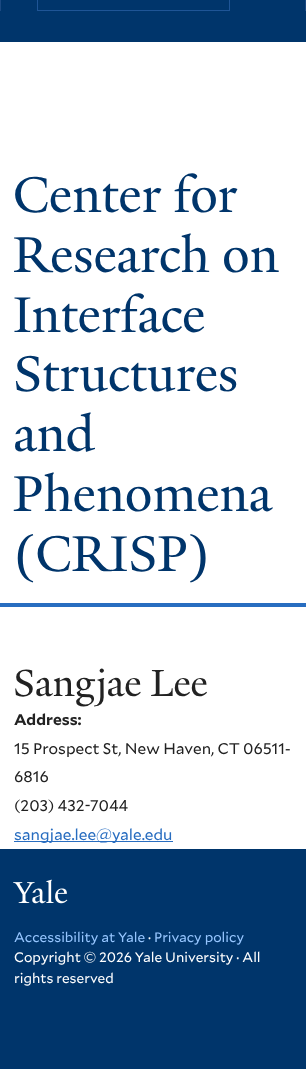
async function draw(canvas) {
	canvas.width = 306;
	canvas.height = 1069;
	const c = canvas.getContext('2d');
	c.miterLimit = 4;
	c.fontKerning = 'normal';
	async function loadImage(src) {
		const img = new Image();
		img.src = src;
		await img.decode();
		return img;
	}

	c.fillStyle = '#fff';
	c.fillRect(0, 0, 306, 1069);
	for (const [x, y, w, h, color] of [
		[0, 0, 306, 42, '#00356b'],
		[305, 0, 1, 11, '#1b4981'],
		[0, 0, 1, 11, '#1b4981'],
	]) {
		c.fillStyle = color;
		c.fillRect(x, y, w, h);
	}
	c.strokeStyle = '#1f5596';
	c.strokeRect(37.5, -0.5, 192, 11);
	c.font = '54.5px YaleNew';
	c.fillStyle = '#00356b';
	for (const [text, x, y] of [
		['Center for', 13, 212],
		['Research on', 13, 272],
		['Interface', 13, 332],
		['Structures', 13, 391],
		['and', 13, 451],
		['Phenomena', 13, 511],
		['(CRISP)', 13, 571],
	]) {
		c.fillText(text, x, y);
	}
	c.fillStyle = '#286dc0';
	c.fillRect(0, 603, 306, 4);
	c.font = '41px YaleNew';
	c.fillStyle = '#222';
	c.fillText('Sangjae Lee', 13, 696);
	c.font = 'bold 15.5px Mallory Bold';
	c.fillText('Address:', 14, 725);
	c.font = '15.5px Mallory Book';
	for (const [text, x, y] of [
		['15 Prospect St, New Haven, CT 06511-', 14, 754],
		['6816', 14, 782],
		['(203) 432-7044', 14, 811],
	]) {
		c.fillText(text, x, y);
	}
	c.fillStyle = '#286dc0';
	c.fillRect(14, 841, 159, 1);
	c.fillText('sangjae.lee@yale.edu', 14, 840);
	c.fillStyle = '#00356b';
	c.fillRect(0, 849, 306, 220);
	c.drawImage(await loadImage('img1.png'), 13, 879, 55, 25);
	c.font = '13.75px Mallory Book';
	c.fillStyle = '#96c6ff';
	c.fillText('Accessibility at Yale', 14, 942);
	c.fillStyle = '#fff';
	c.fillText('·', 148, 942);
	c.fillStyle = '#96c6ff';
	c.fillText('Privacy policy', 154, 942);
	c.fillStyle = '#fff';
	c.fillText('Copyright © 2026 Yale University · All', 14, 962);
	c.fillText('rights reserved', 14, 983);
}

draw(document.querySelector('canvas'));
